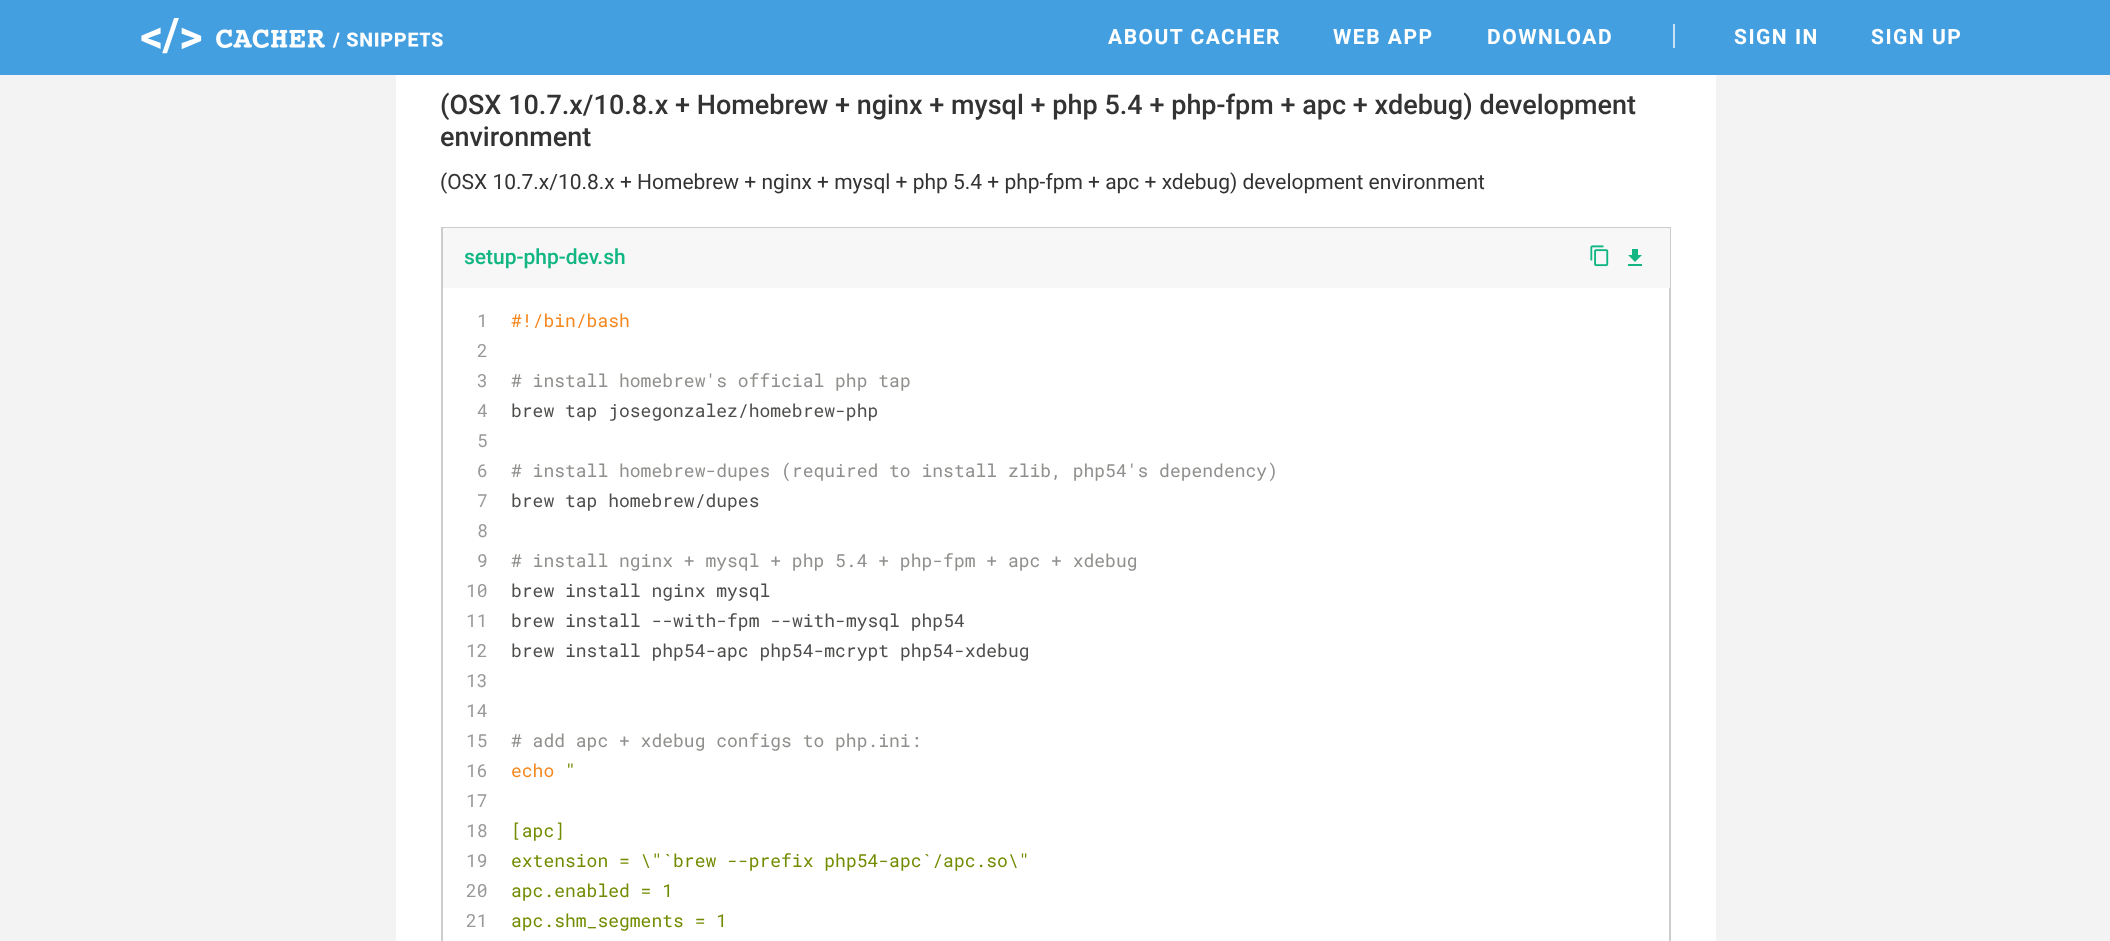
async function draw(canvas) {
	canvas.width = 2110;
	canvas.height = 941;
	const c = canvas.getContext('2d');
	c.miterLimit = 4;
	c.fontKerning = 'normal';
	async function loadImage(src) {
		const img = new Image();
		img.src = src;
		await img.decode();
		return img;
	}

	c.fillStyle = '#f3f3f3';
	c.fillRect(0, 0, 2110, 941);
	c.fillStyle = '#439fe0';
	c.fillRect(0, 0, 2110, 75);
	c.drawImage(await loadImage('img1.png'), 141, 18, 302, 36);
	c.letterSpacing = '1.5px';
	c.font = 'bold 21px Roboto';
	c.fillStyle = '#fff';
	for (const [text, x, y] of [
		['ABOUT CACHER', 1108, 44],
		['WEB APP', 1333, 44],
		['DOWNLOAD', 1487, 44],
	]) {
		c.fillText(text, x, y);
	}
	c.fillStyle = '#c7e2f6';
	c.fillRect(1673, 24, 2, 24);
	c.fillStyle = '#fff';
	c.fillText('SIGN IN', 1734, 44);
	c.fillText('SIGN UP', 1871, 44);
	c.fillRect(396, 75, 1320, 866);
	c.letterSpacing = '0px';
	c.font = '500 27px Roboto';
	c.fillStyle = '#333';
	c.fillText('(OSX 10.7.x/10.8.x + Homebrew + nginx + mysql + php 5.4 + php-fpm + apc + xdebug) development', 440, 114);
	c.fillText('environment', 440, 146);
	c.font = '21px Roboto';
	c.fillText('(OSX 10.7.x/10.8.x + Homebrew + nginx + mysql + php 5.4 + php-fpm + apc + xdebug) development environment', 440, 189);
	c.strokeStyle = '#ccc';
	c.lineWidth = 2;
	c.strokeRect(442, 228, 1228, 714);
	c.fillStyle = '#f7f7f7';
	c.fillRect(443, 228, 1227, 60);
	c.font = '500 21px Roboto';
	c.fillStyle = '#11b683';
	c.fillText('setup-php-dev.sh', 464, 264);
	c.drawImage(await loadImage('img2.png'), 1590, 245, 19, 22);
	c.drawImage(await loadImage('img3.png'), 1628, 249, 14, 17);
	c.font = '18px Roboto Mono';
	c.fillStyle = '#999';
	c.fillText('1', 477, 327);
	c.fillStyle = '#f5871f';
	c.fillText('#!/bin/bash', 511, 327);
	c.fillStyle = '#999';
	c.fillText('2', 477, 357);
	c.fillText('3', 477, 387);
	c.fillStyle = '#8e908c';
	c.fillText('# install homebrew\'s official php tap', 511, 387);
	c.fillStyle = '#999';
	c.fillText('4', 477, 417);
	c.fillStyle = '#4d4d4c';
	c.fillText('brew tap josegonzalez/homebrew-php', 511, 417);
	c.fillStyle = '#999';
	c.fillText('5', 477, 447);
	c.fillText('6', 477, 477);
	c.fillStyle = '#8e908c';
	c.fillText('# install homebrew-dupes (required to install zlib, php54\'s dependency)', 511, 477);
	c.fillStyle = '#999';
	c.fillText('7', 477, 507);
	c.fillStyle = '#4d4d4c';
	c.fillText('brew tap homebrew/dupes', 511, 507);
	c.fillStyle = '#999';
	c.fillText('8', 477, 537);
	c.fillText('9', 477, 567);
	c.fillStyle = '#8e908c';
	c.fillText('# install nginx + mysql + php 5.4 + php-fpm + apc + xdebug', 511, 567);
	c.fillStyle = '#999';
	c.fillText('10', 466, 597);
	c.fillStyle = '#4d4d4c';
	c.fillText('brew install nginx mysql', 511, 597);
	c.fillStyle = '#999';
	c.fillText('11', 466, 627);
	c.fillStyle = '#4d4d4c';
	c.fillText('brew install --with-fpm --with-mysql php54', 511, 627);
	c.fillStyle = '#999';
	c.fillText('12', 466, 657);
	c.fillStyle = '#4d4d4c';
	c.fillText('brew install php54-apc php54-mcrypt php54-xdebug', 511, 657);
	c.fillStyle = '#999';
	for (const [text, x, y] of [
		['13', 466, 687],
		['14', 466, 717],
		['15', 466, 747],
	]) {
		c.fillText(text, x, y);
	}
	c.fillStyle = '#8e908c';
	c.fillText('# add apc + xdebug configs to php.ini:', 511, 747);
	c.fillStyle = '#999';
	c.fillText('16', 466, 777);
	c.fillStyle = '#f5871f';
	c.fillText('echo', 511, 777);
	c.fillStyle = '#718c00';
	c.fillText('"', 565, 777);
	c.fillStyle = '#999';
	c.fillText('17', 466, 807);
	c.fillText('18', 466, 837);
	c.fillStyle = '#718c00';
	c.fillText('[apc]', 511, 837);
	c.fillStyle = '#999';
	c.fillText('19', 466, 867);
	c.fillStyle = '#718c00';
	c.fillText('extension = \\"`brew --prefix php54-apc`/apc.so\\"', 511, 867);
	c.fillStyle = '#999';
	c.fillText('20', 466, 897);
	c.fillStyle = '#718c00';
	c.fillText('apc.enabled = 1', 511, 897);
	c.fillStyle = '#999';
	c.fillText('21', 466, 927);
	c.fillStyle = '#718c00';
	c.fillText('apc.shm_segments = 1', 511, 927);
}

draw(document.querySelector('canvas'));
